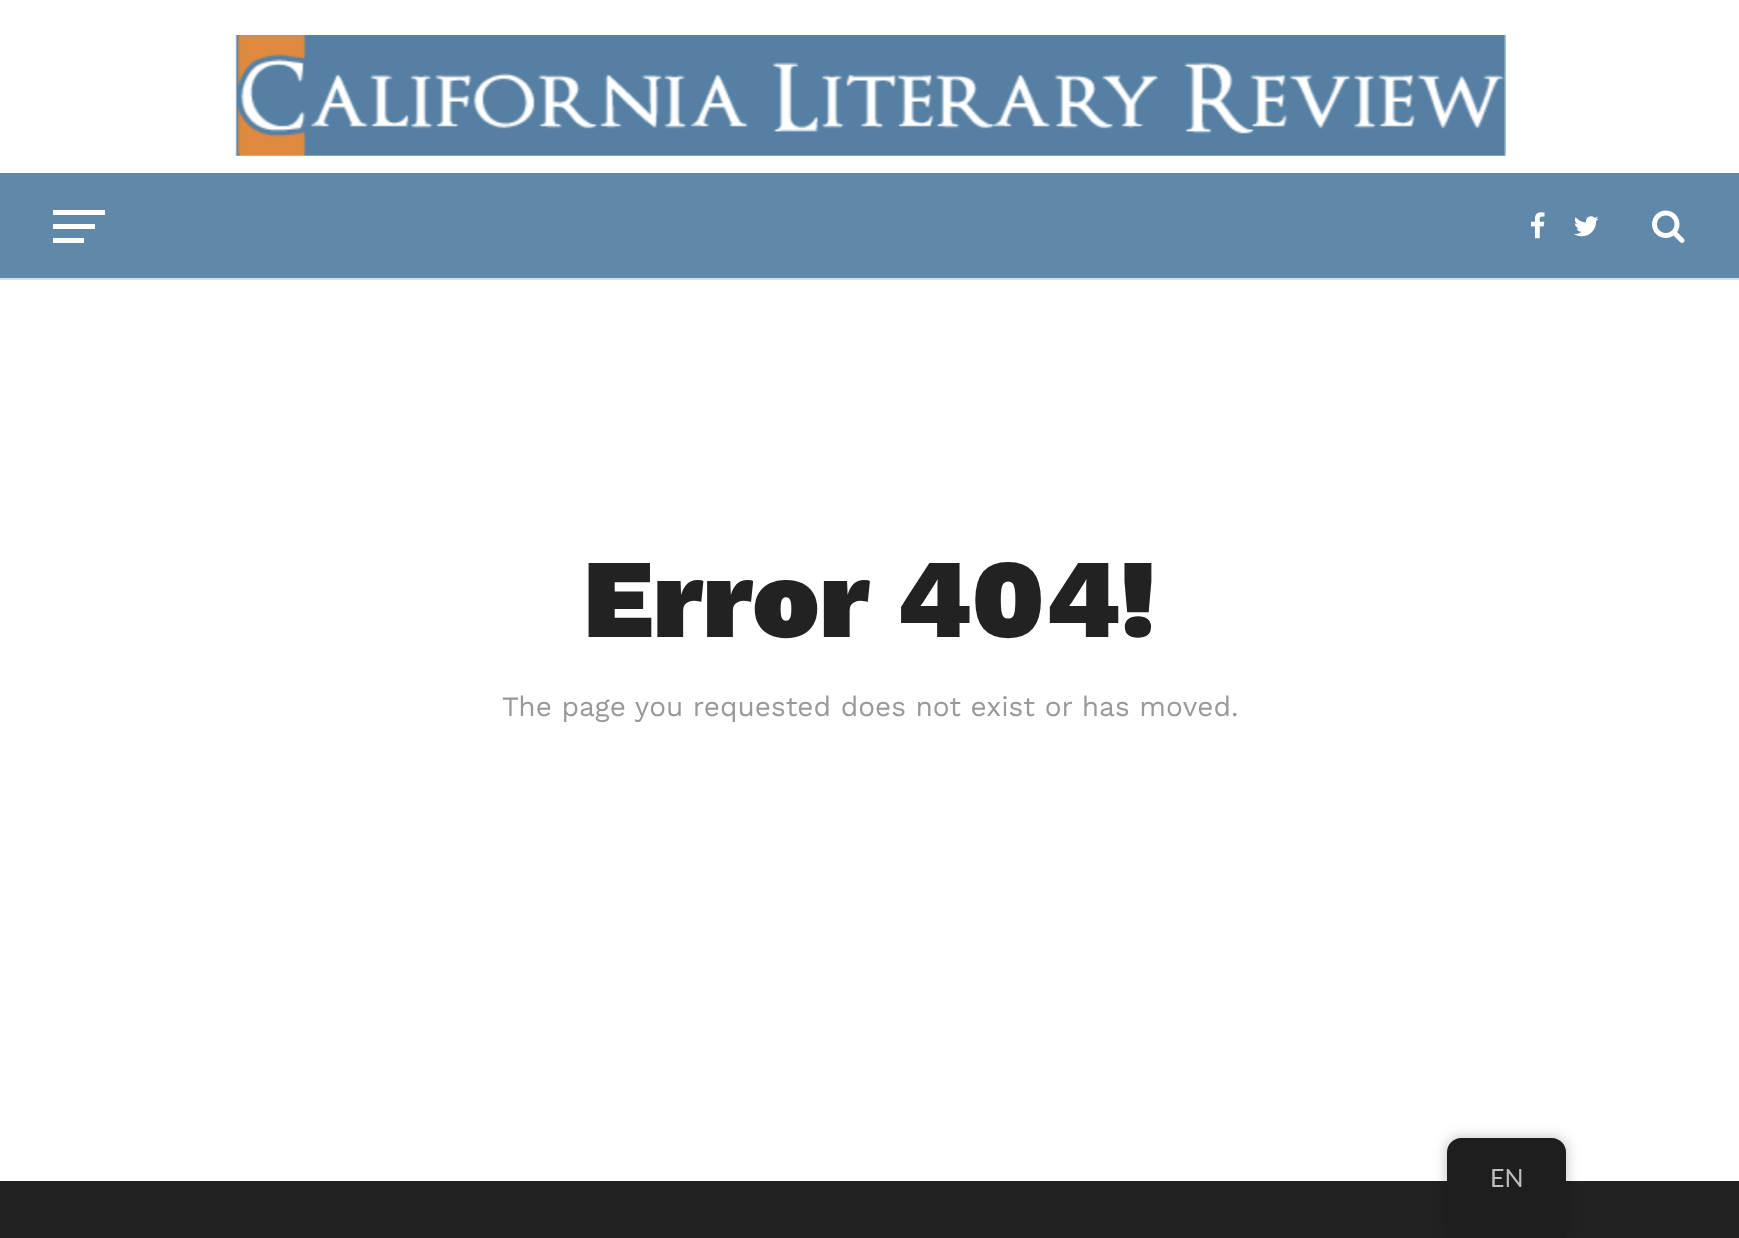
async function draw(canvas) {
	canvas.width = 1739;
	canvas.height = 1238;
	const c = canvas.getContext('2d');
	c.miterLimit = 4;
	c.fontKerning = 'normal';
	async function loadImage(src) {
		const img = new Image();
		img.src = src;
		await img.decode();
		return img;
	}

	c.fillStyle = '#fff';
	c.fillRect(0, 0, 1739, 1238);
	c.drawImage(await loadImage('img1.png'), 235, 35, 1271, 121);
	for (const [x, y, w, h, color] of [
		[0, 173, 1739, 105, '#6088ab'],
		[53, 210, 52, 5, '#fff'],
		[53, 224, 42, 5, '#fff'],
		[53, 238, 31, 5, '#fff'],
	]) {
		c.fillStyle = color;
		c.fillRect(x, y, w, h);
	}
	c.drawImage(await loadImage('img2.png'), 1531, 212, 14, 27);
	c.drawImage(await loadImage('img3.png'), 1574, 216, 25, 21);
	c.drawImage(await loadImage('img4.png'), 1652, 210, 33, 33);
	c.fillStyle = '#ddd';
	c.fillRect(0, 278, 1739, 2);
	c.font = '900 112px Work Sans';
	c.fillStyle = '#222';
	c.fillText('Error 404!', 583, 637);
	c.font = '28px Work Sans';
	c.fillStyle = '#999';
	c.fillText('The page you requested does not exist or has moved.', 502, 716);
	c.fillStyle = '#222';
	c.fillRect(0, 1181, 1739, 57);
	c.fillStyle = '#00000040';
	c.filter = 'blur(7px)';
	c.beginPath();
	c.roundRect(1447, 1138, 119, 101, 14);
	c.fill();
	c.filter = 'none';
	c.fillStyle = '#1e1e1e';
	c.beginPath();
	c.moveTo(1461, 1138);
	c.lineTo(1552, 1138);
	c.bezierCurveTo(1559.5, 1138, 1566, 1144.5, 1566, 1152);
	c.lineTo(1566, 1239);
	c.lineTo(1447, 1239);
	c.lineTo(1447, 1152);
	c.bezierCurveTo(1447, 1144.5, 1453.5, 1138, 1461, 1138);
	c.closePath();
	c.fill();
	c.font = '25px Lato';
	c.fillStyle = '#bdbdbd';
	c.fillText('EN', 1490, 1187);
}

draw(document.querySelector('canvas'));
